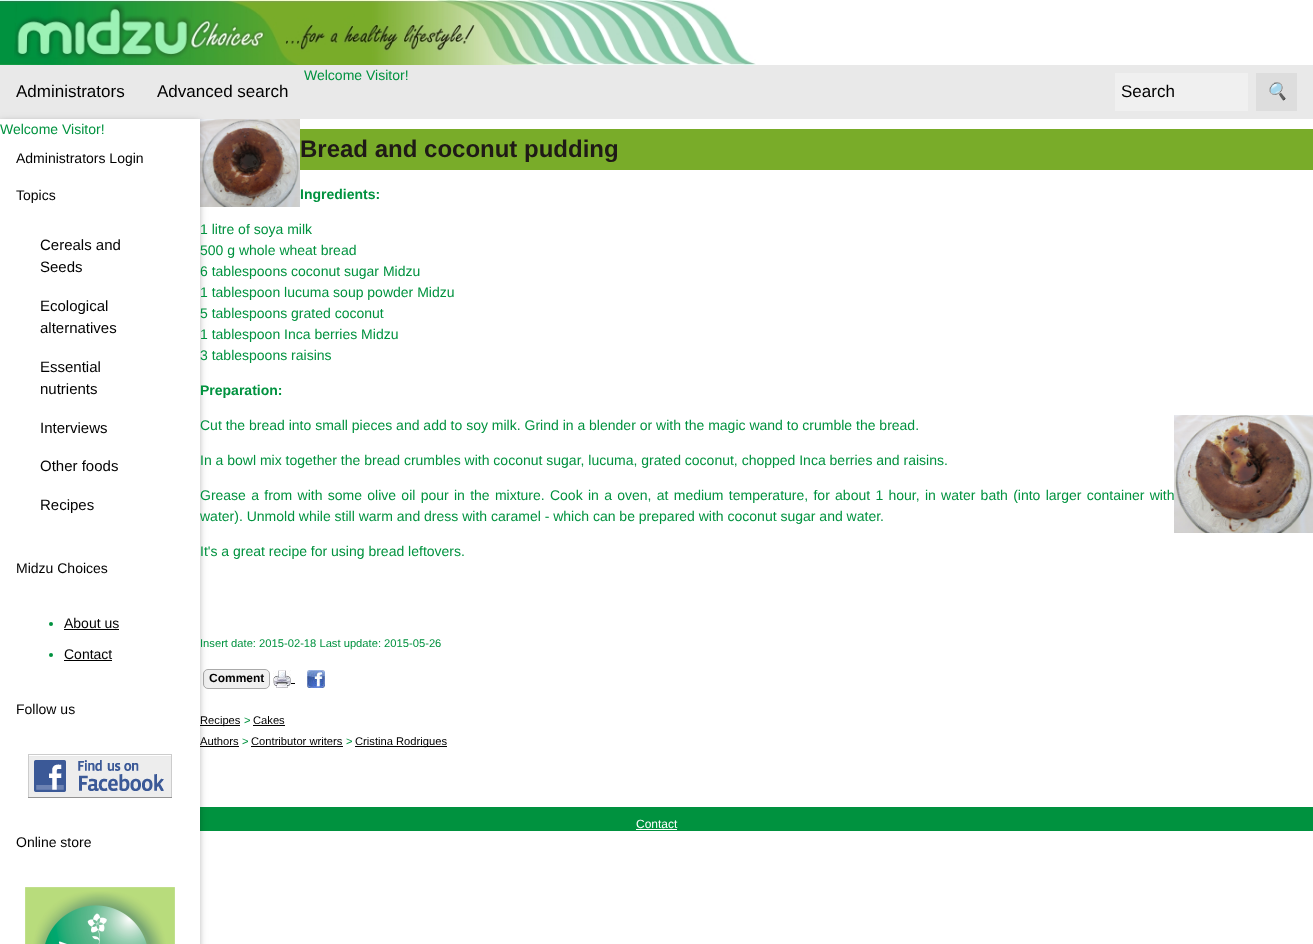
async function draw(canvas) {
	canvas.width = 1313;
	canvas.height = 944;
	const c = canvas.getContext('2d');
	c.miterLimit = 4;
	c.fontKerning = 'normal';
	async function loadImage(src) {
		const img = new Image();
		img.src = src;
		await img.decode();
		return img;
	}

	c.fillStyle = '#fff';
	c.fillRect(0, 0, 1313, 944);
	c.drawImage(await loadImage('img1.png'), 0, 0, 756, 65);
	c.fillStyle = '#e9e9e9';
	c.fillRect(0, 65, 1313, 54);
	c.font = '14px Liberation Sans';
	c.fillStyle = '#00923f';
	c.fillText('Welcome Visitor!', 304, 80);
	c.font = '17px Liberation Sans';
	c.fillStyle = '#000';
	c.fillText('Administrators', 16, 97);
	c.fillText('Advanced search', 157, 97);
	c.fillStyle = '#f0f0f0';
	c.fillRect(1115, 73, 133, 38);
	c.fillStyle = '#000';
	c.fillText('Search', 1121, 97);
	c.fillStyle = '#ddd';
	c.fillRect(1256, 73, 41, 38);
	c.font = 'italic 17px Noto Color Emoji';
	c.fillStyle = '#000';
	c.fillText('🔍', 1266, 97);
	c.drawImage(await loadImage('img4.png'), 200, 119, 100, 88);
	c.fillStyle = '#f0f0f0';
	c.beginPath();
	c.roundRect(203.5, 669.5, 66, 19, 4.5);
	c.fill();
	c.strokeStyle = '#aaa';
	c.stroke();
	for (const [x, y, w, h, color] of [
		[200, 725, 40, 1, '#000'],
		[200, 746, 39, 1, '#000'],
		[200, 807, 1113, 24, '#00923f'],
	]) {
		c.fillStyle = color;
		c.fillRect(x, y, w, h);
	}
	c.fillStyle = '#0000001f';
	c.filter = 'blur(5px)';
	c.beginPath();
	c.rect(0, 121, 200, 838);
	c.fill();
	c.filter = 'none';
	c.fillStyle = '#00000029';
	c.filter = 'blur(2.5px)';
	c.beginPath();
	c.rect(0, 121, 200, 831);
	c.fill();
	c.filter = 'none';
	c.fillStyle = '#fff';
	c.fillRect(0, 119, 200, 825);
	c.font = '14px Liberation Sans';
	c.fillStyle = '#00923f';
	c.fillText('Welcome Visitor!', 0, 134);
	c.fillStyle = '#000';
	c.fillText('Administrators Login', 16, 163);
	c.fillText('Topics', 16, 200);
	c.font = '15px Liberation Sans';
	for (const [text, x, y] of [
		['Cereals and', 40, 250],
		['Seeds', 40, 272],
		['Ecological', 40, 311],
		['alternatives', 40, 333],
		['Essential', 40, 372],
		['nutrients', 40, 394],
		['Interviews', 40, 433],
		['Other foods', 40, 471],
		['Recipes', 40, 510],
	]) {
		c.fillText(text, x, y);
	}
	c.font = '14px Liberation Sans';
	c.fillText('Midzu Choices', 16, 573);
	c.fillStyle = '#00923f';
	c.beginPath();
	c.arc(51, 624, 2, 0, 2 * Math.PI);
	c.fill();
	c.fillStyle = '#000';
	c.fillText('About us', 64, 628);
	c.fillRect(64, 629, 55, 1);
	c.fillStyle = '#00923f';
	c.beginPath();
	c.arc(51, 655, 2, 0, 2 * Math.PI);
	c.fill();
	c.fillStyle = '#000';
	c.fillText('Contact', 64, 659);
	c.fillRect(64, 660, 48, 1);
	c.fillText('Follow us', 16, 714);
	c.drawImage(await loadImage('img2.png'), 28, 754, 144, 44);
	c.fillText('Online store', 16, 847);
	c.drawImage(await loadImage('img3.png'), 25, 887, 150, 57);
	c.fillStyle = '#79ac29';
	c.fillRect(300, 129, 1013, 41);
	c.font = 'bold 24px Liberation Sans';
	c.fillStyle = '#1f1a17';
	c.fillText('Bread and coconut pudding', 300, 157);
	c.font = 'bold 14px Liberation Sans';
	c.fillStyle = '#00923f';
	c.fillText('Ingredients:', 300, 199);
	c.font = '14px Liberation Sans';
	for (const [text, x, y] of [
		['1 litre of soya milk', 200, 234],
		['500 g whole wheat bread', 200, 255],
		['6 tablespoons coconut sugar Midzu', 200, 276],
		['1 tablespoon lucuma soup powder Midzu', 200, 297],
		['5 tablespoons grated coconut', 200, 318],
		['1 tablespoon Inca berries Midzu', 200, 339],
		['3 tablespoons raisins', 200, 360],
	]) {
		c.fillText(text, x, y);
	}
	c.font = 'bold 14px Liberation Sans';
	c.fillText('Preparation:', 200, 395);
	c.font = '14px Liberation Sans';
	c.fillText('Cut the bread into small pieces and add to soy milk. Grind in a blender or with the magic wand to crumble the bread.', 200, 430);
	c.drawImage(await loadImage('img5.png'), 1174, 415, 139, 118);
	c.fillText('In a bowl mix together the bread crumbles with coconut sugar, lucuma, grated coconut, chopped Inca berries and raisins.', 200, 465);
	c.wordSpacing = '1.4px';
	c.fillText('Grease a from with some olive oil pour in the mixture. Cook in a oven, at medium temperature, for about 1 hour, in water bath (into larger container with', 200, 500);
	c.wordSpacing = '0px';
	c.fillText('water). Unmold while still warm and dress with caramel - which can be prepared with coconut sugar and water.', 200, 521);
	c.fillText('It\'s a great recipe for using bread leftovers.', 200, 556);
	c.font = '11.2px Liberation Sans';
	c.fillText('Insert date: 2015-02-18 Last update: 2015-05-26', 200, 647);
	c.font = 'bold 12px Liberation Sans';
	c.fillStyle = '#000';
	c.fillText('Comment', 209, 682);
	c.fillRect(291, 683, 4, 1);
	c.drawImage(await loadImage('img6.png'), 273, 670, 18, 18);
	c.drawImage(await loadImage('img7.png'), 307, 670, 18, 18);
	c.font = '11.2px Liberation Sans';
	c.fillText('Recipes', 200, 724);
	c.fillStyle = '#00923f';
	c.fillText('>', 244, 724);
	c.fillStyle = '#000';
	c.fillText('Cakes', 253, 724);
	c.fillRect(253, 725, 32, 1);
	c.fillText('Authors', 200, 745);
	c.fillStyle = '#00923f';
	c.fillText('>', 242, 745);
	c.fillStyle = '#000';
	c.fillText('Contributor writers', 251, 745);
	c.fillRect(251, 746, 92, 1);
	c.fillStyle = '#00923f';
	c.fillText('>', 346, 745);
	c.fillStyle = '#000';
	c.fillRect(355, 746, 92, 1);
	c.fillText('Cristina Rodrigues', 355, 745);
	c.font = '12px Liberation Sans';
	c.fillStyle = '#fff';
	c.fillText('Contact', 636, 828);
	c.fillRect(636, 829, 41, 1);
}

draw(document.querySelector('canvas'));
